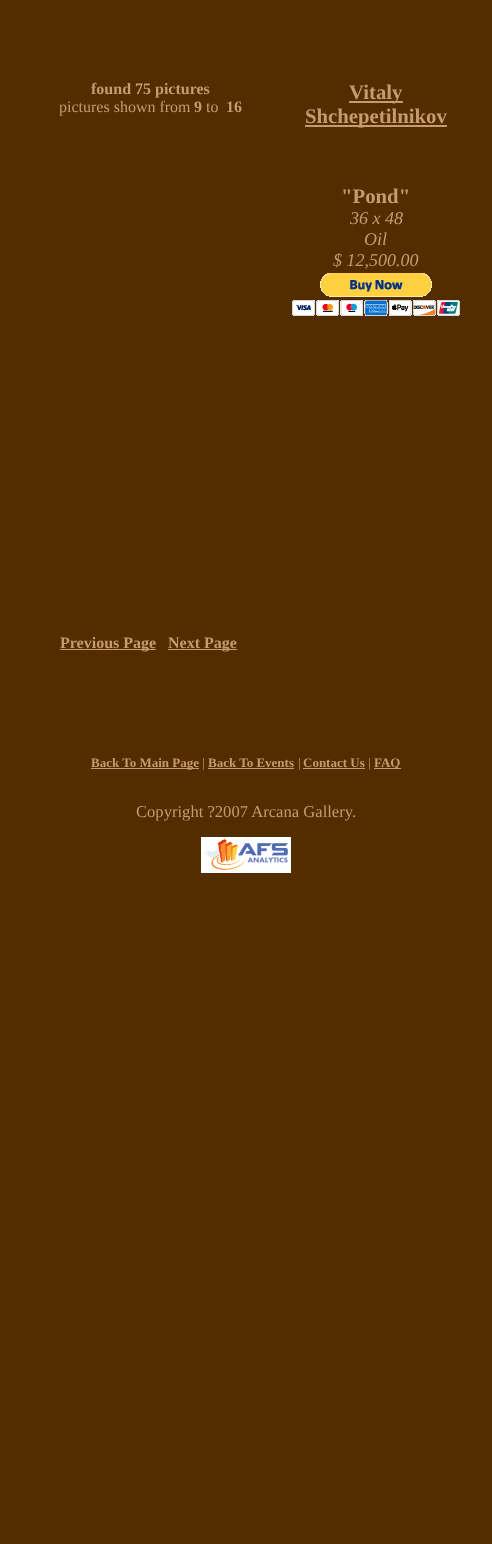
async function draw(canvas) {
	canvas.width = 492;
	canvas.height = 1544;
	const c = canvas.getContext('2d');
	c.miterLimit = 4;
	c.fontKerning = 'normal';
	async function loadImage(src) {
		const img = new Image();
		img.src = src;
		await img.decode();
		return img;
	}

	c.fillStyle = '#522d00';
	c.fillRect(0, 0, 492, 1544);
	c.font = 'bold 16px Liberation Serif';
	c.fillStyle = '#c69c6d';
	c.fillText('found 75 pictures', 91, 94);
	c.font = '16px Liberation Serif';
	c.fillText('pictures shown from', 59, 112);
	c.font = 'bold 16px Liberation Serif';
	c.fillText('9', 194, 112);
	c.font = '16px Liberation Serif';
	c.fillText('to', 206, 112);
	c.font = 'bold 16px Liberation Serif';
	c.fillText('16', 226, 112);
	c.fillRect(60, 649, 96, 1);
	c.fillText('Previous Page', 60, 648);
	c.fillRect(168, 649, 69, 1);
	c.fillText('Next Page', 168, 648);
	c.fillRect(349, 101, 54, 2);
	c.font = 'bold 20.75px Liberation Serif';
	c.fillText('Vitaly', 349, 99);
	c.fillRect(305, 125, 142, 2);
	c.fillText('Shchepetilnikov', 305, 123);
	c.fillText('"Pond"', 341, 203);
	c.font = 'italic 18px Liberation Serif';
	for (const [text, x, y] of [
		['36 x 48', 350, 224],
		['Oil', 364, 245],
		['$ 12,500.00', 333, 266],
	]) {
		c.fillText(text, x, y);
	}
	c.drawImage(await loadImage('img1.png'), 292, 273, 168, 43);
	c.fillRect(91, 768, 108, 1);
	c.font = 'bold 13px Liberation Serif';
	c.fillText('Back To Main Page', 91, 767);
	c.font = '13px Liberation Serif';
	c.fillText('|', 202, 767);
	c.font = 'bold 13px Liberation Serif';
	c.fillText('Back To Events', 208, 767);
	c.fillRect(208, 768, 86, 1);
	c.font = '13px Liberation Serif';
	c.fillText('|', 298, 767);
	c.font = 'bold 13px Liberation Serif';
	c.fillText('Contact Us', 303, 767);
	c.fillRect(303, 768, 62, 1);
	c.font = '13px Liberation Serif';
	c.fillText('|', 368, 767);
	c.fillRect(374, 768, 27, 1);
	c.font = 'bold 13px Liberation Serif';
	c.fillText('FAQ', 374, 767);
	c.font = '16.6px Liberation Serif';
	c.fillText('Copyright ?2007 Arcana Gallery.', 136, 817);
	c.drawImage(await loadImage('img2.png'), 201, 837, 90, 36);
}

draw(document.querySelector('canvas'));
